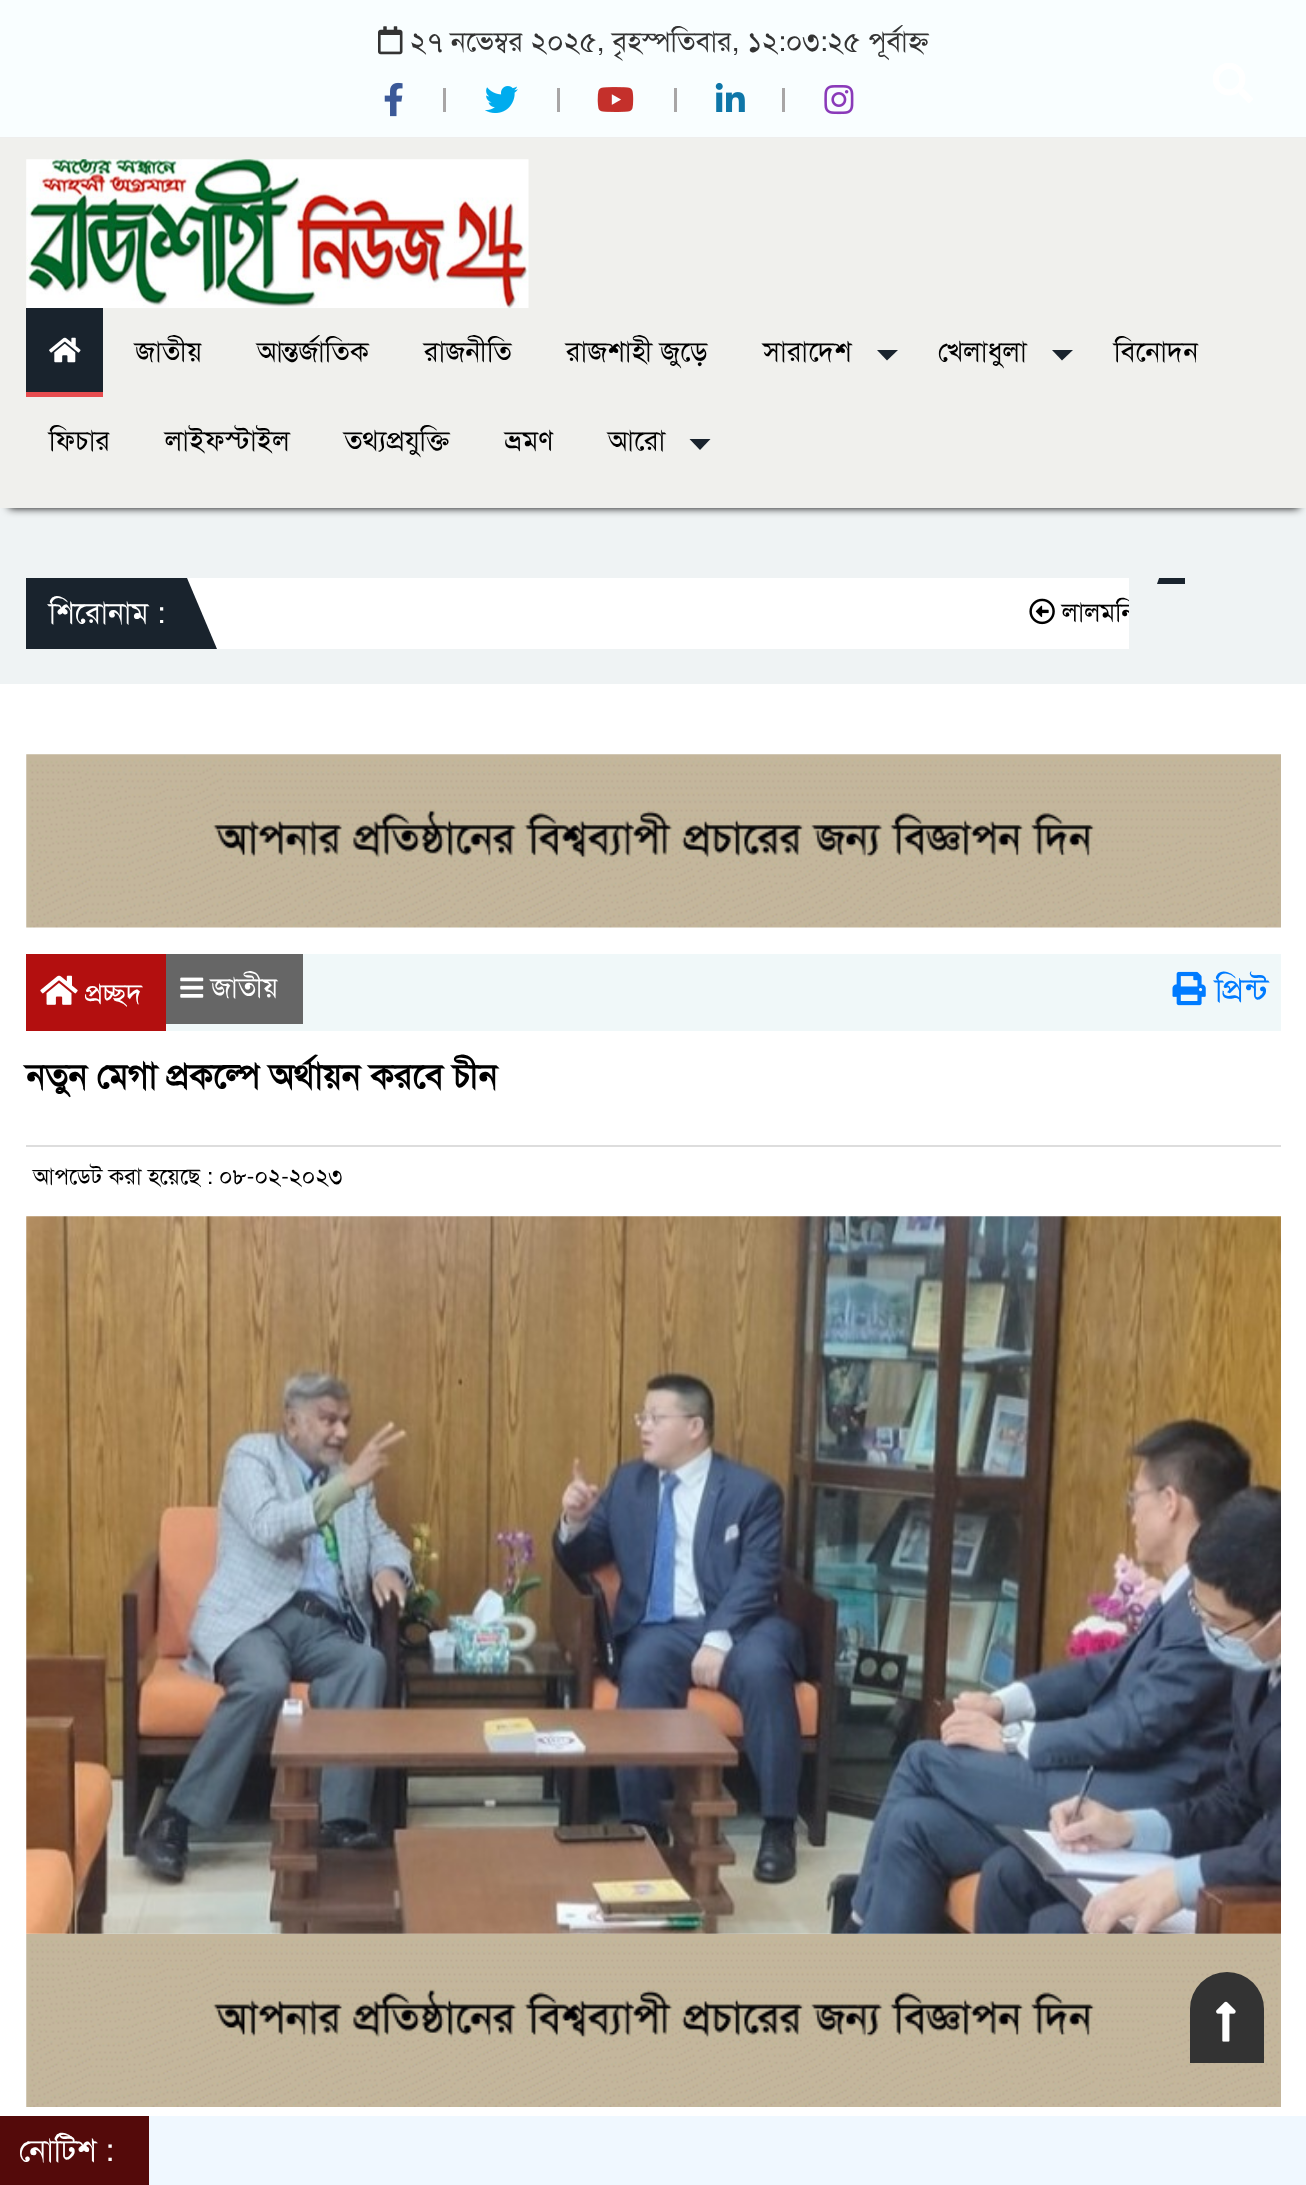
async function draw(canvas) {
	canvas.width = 1306;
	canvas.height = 2185;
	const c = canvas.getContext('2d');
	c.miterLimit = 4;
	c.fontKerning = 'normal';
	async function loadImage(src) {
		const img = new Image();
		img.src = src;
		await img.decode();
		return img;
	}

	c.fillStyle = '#eff3f4';
	c.fillRect(0, 0, 1306, 2185);
	c.fillStyle = '#f9feff';
	c.fillRect(0, 0, 1306, 137);
	c.fillStyle = '#eee';
	c.fillRect(0, 137, 1306, 1);
	c.drawImage(await loadImage('img1.png'), 378, 26, 25, 29);
	c.font = '28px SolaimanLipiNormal';
	c.fillStyle = '#333';
	c.fillText('২৭ নভেম্বর ২০২৫, বৃহস্পতিবার, ১২:০৩:২৫ পূর্বাহ্ন', 410, 51);
	c.drawImage(await loadImage('img2.png'), 384, 82, 19, 35);
	c.fillStyle = '#a8a6a6';
	c.fillRect(443, 88, 3, 24);
	c.drawImage(await loadImage('img3.png'), 485, 86, 33, 27);
	c.fillRect(557, 88, 3, 24);
	c.drawImage(await loadImage('img4.png'), 597, 87, 37, 25);
	c.fillRect(674, 88, 3, 24);
	c.drawImage(await loadImage('img5.png'), 715, 82, 30, 30);
	c.fillRect(782, 88, 3, 24);
	c.drawImage(await loadImage('img6.png'), 824, 85, 30, 30);
	c.drawImage(await loadImage('img7.png'), 1213, 63, 40, 40);
	c.fillStyle = '#000';
	c.filter = 'blur(4.5px)';
	c.beginPath();
	c.rect(9, 156, 1290, 352);
	c.fill();
	c.filter = 'none';
	c.fillStyle = '#f0f0ed';
	c.fillRect(0, 138, 1306, 370);
	c.drawImage(await loadImage('img8.png'), 26, 159, 503, 149);
	c.fillStyle = '#19232d';
	c.fillRect(26, 308, 77, 84);
	c.drawImage(await loadImage('img9.png'), 49, 337, 32, 26);
	c.fillStyle = '#e74c4f';
	c.fillRect(26, 392, 77, 5);
	c.fillStyle = '#000';
	for (const [text, x, y] of [
		['জাতীয়', 135, 361],
		['আন্তর্জাতিক', 257, 361],
		['রাজনীতি', 424, 361],
		['রাজশাহী জুড়ে', 566, 361],
		['সারাদেশ', 763, 361],
	]) {
		c.fillText(text, x, y);
	}
	c.fillStyle = '#19232d';
	c.beginPath();
	c.moveTo(877, 350);
	c.lineTo(898, 350);
	c.lineTo(887, 360.5);
	c.closePath();
	c.fill();
	c.fillStyle = '#000';
	c.fillText('খেলাধুলা', 938, 361);
	c.fillStyle = '#19232d';
	c.beginPath();
	c.moveTo(1052, 350);
	c.lineTo(1073, 350);
	c.lineTo(1062, 360.5);
	c.closePath();
	c.fill();
	c.fillStyle = '#000';
	for (const [text, x, y] of [
		['বিনোদন', 1114, 361],
		['ফিচার', 49, 450],
		['লাইফস্টাইল', 165, 450],
		['তথ্যপ্রযুক্তি', 344, 450],
		['ভ্রমণ', 505, 450],
		['আরো', 608, 450],
	]) {
		c.fillText(text, x, y);
	}
	c.fillStyle = '#19232d';
	c.beginPath();
	c.moveTo(689.5, 439);
	c.lineTo(710.5, 439);
	c.lineTo(700, 450);
	c.closePath();
	c.fill();
	c.save();
	c.beginPath();
	c.rect(0, 578, 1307, 71);
	c.clip();
	c.beginPath();
	c.moveTo(1185, 584);
	c.lineTo(1157, 584);
	c.lineTo(1185, 504);
	c.closePath();
	c.fill();
	c.restore();
	c.fillRect(26, 578, 161, 71);
	c.font = '30px SolaimanLipiNormal';
	c.fillStyle = '#fff';
	c.fillText('শিরোনাম :', 49, 623);
	c.fillRect(187, 578, 942, 71);
	c.fillStyle = '#19232d';
	c.beginPath();
	c.moveTo(217, 649);
	c.lineTo(187, 649);
	c.lineTo(187, 578);
	c.closePath();
	c.fill();
	c.drawImage(await loadImage('img10.png'), 1029, 598, 26, 27);
	c.save();
	c.beginPath();
	c.rect(187, 578, 942, 70);
	c.clip();
	c.font = '26px SolaimanLipiNormal';
	c.fillStyle = '#000';
	c.fillText('লালমনি', 1062, 621);
	c.restore();
	c.fillStyle = '#fff';
	c.fillRect(0, 684, 1306, 1432);
	c.drawImage(await loadImage('img11.png'), 26, 754, 1255, 174);
	c.fillStyle = '#f0f8f9';
	c.fillRect(166, 954, 1115, 77);
	c.fillStyle = '#b30f0f';
	c.fillRect(26, 954, 140, 77);
	c.drawImage(await loadImage('img12.png'), 40, 975, 38, 30);
	c.font = '28px SolaimanLipiNormal';
	c.fillStyle = '#fff';
	c.fillText('প্রচ্ছদ', 85, 1003);
	c.fillStyle = '#666';
	c.fillRect(166, 954, 137, 70);
	c.drawImage(await loadImage('img13.png'), 180, 977, 24, 21);
	c.fillStyle = '#fff';
	c.fillText('জাতীয়', 211, 997);
	c.drawImage(await loadImage('img14.png'), 1172, 971, 34, 35);
	c.font = '33px SolaimanLipiNormal';
	c.fillStyle = '#007bff';
	c.fillText('প্রিন্ট', 1215, 1001);
	c.font = 'bold 35px SolaimanLipiNormal';
	c.fillStyle = '#000';
	c.fillText('নতুন মেগা প্রকল্পে অর্থায়ন করবে চীন', 26, 1088);
	c.fillStyle = '#ddd';
	c.fillRect(26, 1145, 1255, 2);
	c.font = '22.75px SolaimanLipiNormal';
	c.fillStyle = '#000';
	c.fillText('আপডেট করা হয়েছে : ০৮-০২-২০২৩', 33, 1184);
	c.drawImage(await loadImage('img16.png'), 26, 1933, 1255, 174);
	c.drawImage(await loadImage('img15.png'), 26, 1216, 1255, 718);
	c.fillStyle = '#333';
	c.beginPath();
	c.roundRect(1190, 1972, 74, 91, [37, 37, 0, 0]);
	c.fill();
	c.drawImage(await loadImage('img17.png'), 1216, 2001, 20, 41);
	c.fillStyle = '#f0f8ff';
	c.fillRect(149, 2116, 1157, 69);
	c.fillStyle = '#540a0a';
	c.fillRect(0, 2116, 149, 69);
	c.font = '31.5px SolaimanLipiNormal';
	c.fillStyle = '#fff';
	c.fillText('নোটিশ :', 19, 2161);
}

draw(document.querySelector('canvas'));
